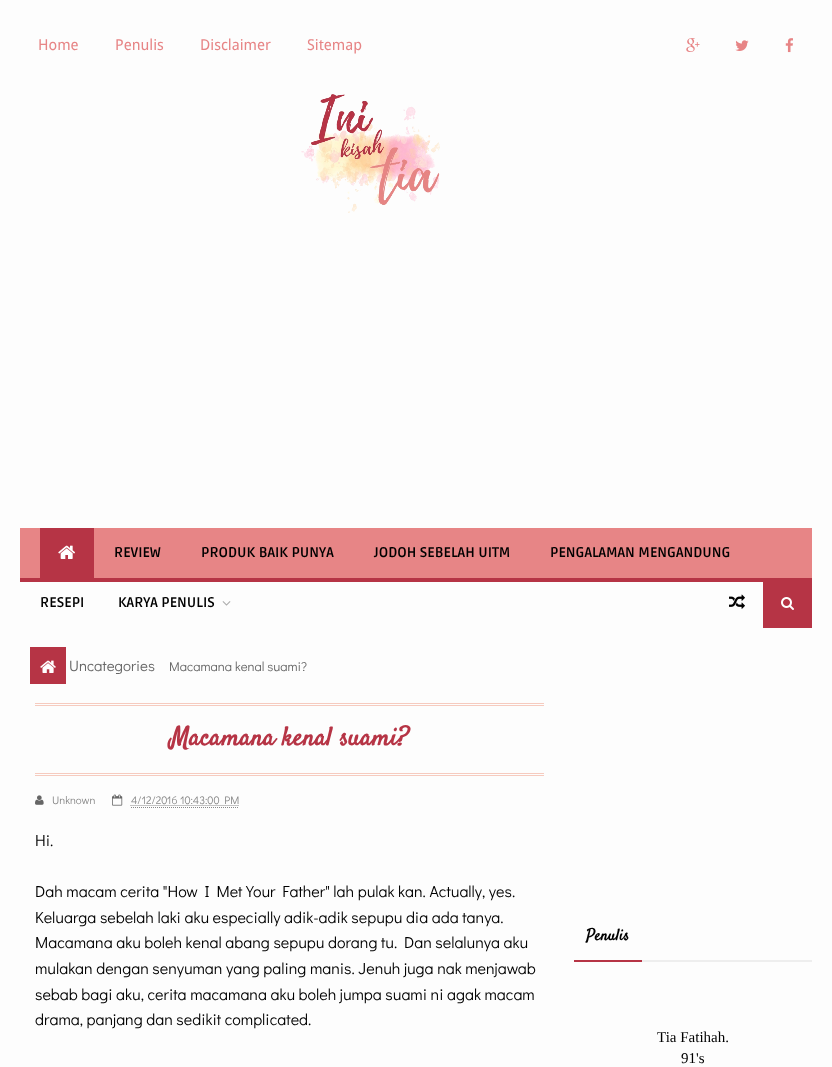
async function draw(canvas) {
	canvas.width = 832;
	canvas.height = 1067;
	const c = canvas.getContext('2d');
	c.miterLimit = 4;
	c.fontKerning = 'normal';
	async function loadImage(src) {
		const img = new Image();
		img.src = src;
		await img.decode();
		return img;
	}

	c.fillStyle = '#fdfdfd';
	c.fillRect(0, 0, 832, 1067);
	c.font = '15px Droid Sans';
	c.fillStyle = '#e78586';
	for (const [text, x, y] of [
		['Home', 38, 50],
		['Penulis', 115, 50],
		['Disclaimer', 200, 50],
		['Sitemap', 307, 50],
	]) {
		c.fillText(text, x, y);
	}
	c.drawImage(await loadImage('img1.png'), 686, 38, 14, 14);
	c.drawImage(await loadImage('img2.png'), 735, 40, 14, 11);
	c.drawImage(await loadImage('img3.png'), 785, 38, 8, 15);
	c.drawImage(await loadImage('img4.png'), 301, 94, 139, 119);
	for (const [x, y, w, h, color] of [
		[20, 528, 792, 50, '#e78586'],
		[20, 578, 743, 4, '#b63445'],
		[40, 528, 54, 50, '#b63445'],
	]) {
		c.fillStyle = color;
		c.fillRect(x, y, w, h);
	}
	c.drawImage(await loadImage('img5.png'), 58, 545, 17, 14);
	c.font = 'bold 14px Ruda';
	c.fillStyle = '#000';
	for (const [text, x, y] of [
		['REVIEW', 114, 557],
		['PRODUK BAIK PUNYA', 201, 557],
		['JODOH SEBELAH UITM', 374, 557],
		['PENGALAMAN MENGANDUNG', 550, 557],
		['RESEPI', 40, 607],
		['KARYA PENULIS', 118, 607],
	]) {
		c.fillText(text, x, y);
	}
	c.drawImage(await loadImage('img6.png'), 222, 601, 9, 5);
	c.drawImage(await loadImage('img7.png'), 729, 594, 16, 15);
	c.fillStyle = '#b63445';
	c.fillRect(763, 578, 49, 50);
	c.drawImage(await loadImage('img8.png'), 781, 597, 13, 13);
	c.fillRect(30, 647, 36, 37);
	c.drawImage(await loadImage('img9.png'), 40, 660, 16, 13);
	c.font = '15px Didact Gothic';
	c.fillStyle = '#666';
	c.fillText('Uncategories', 69, 671);
	c.font = '13px Didact Gothic';
	c.fillText('Macamana kenal suami?', 169, 671);
	for (const [x, y, w, h, color] of [
		[35, 703, 509, 1, '#f6cbbf'],
		[35, 705, 509, 1, '#f6cbbf'],
		[35, 773, 509, 1, '#f6cbbf'],
		[35, 775, 509, 1, '#f6cbbf'],
	]) {
		c.fillStyle = color;
		c.fillRect(x, y, w, h);
	}
	c.font = 'bold 26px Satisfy';
	c.fillStyle = '#b63445';
	c.fillText('Macamana kenal suami?', 170, 745);
	c.drawImage(await loadImage('img10.png'), 35, 795, 9, 10);
	c.font = '11px Didact Gothic';
	c.fillStyle = '#888';
	c.fillText('Unknown', 52, 804);
	c.drawImage(await loadImage('img11.png'), 112, 794, 11, 12);
	c.fillText('4/12/2016 10:43:00 PM', 131, 804);
	c.beginPath();
	c.moveTo(131, 807.5);
	c.lineTo(239, 807.5);
	c.strokeStyle = '#888';
	c.setLineDash([1, 1]);
	c.stroke();
	c.beginPath();
	c.moveTo(130.5, 805.5);
	c.lineTo(239, 805.5);
	c.stroke();
	c.font = '16px Didact Gothic';
	c.fillStyle = '#000';
	for (const [text, x, y] of [
		['Hi.', 35, 846],
		['Dah macam cerita "How I Met Your Father" lah pulak kan. Actually, yes.', 35, 897],
		['Keluarga sebelah laki aku especially adik-adik sepupu dia ada tanya.', 35, 923],
		['Macamana aku boleh kenal abang sepupu dorang tu. Dan selalunya aku', 35, 948],
		['mulakan dengan senyuman yang paling manis. Jenuh juga nak menjawab', 35, 974],
		['sebab bagi aku, cerita macamana aku boleh jumpa suami ni agak macam', 35, 1000],
		['drama, panjang dan sedikit complicated.', 35, 1025],
	]) {
		c.fillText(text, x, y);
	}
	c.fillStyle = '#eee';
	c.fillRect(642, 960, 170, 2);
	c.fillStyle = '#b63445';
	c.fillRect(574, 960, 68, 2);
	c.font = 'bold 16px Satisfy';
	c.fillStyle = '#000';
	c.fillText('Penulis', 586, 940);
	c.font = '15px Liberation Serif';
	c.fillText('Tia Fatihah.', 657, 1042);
	c.fillText('91\'s', 681, 1063);
}

draw(document.querySelector('canvas'));
